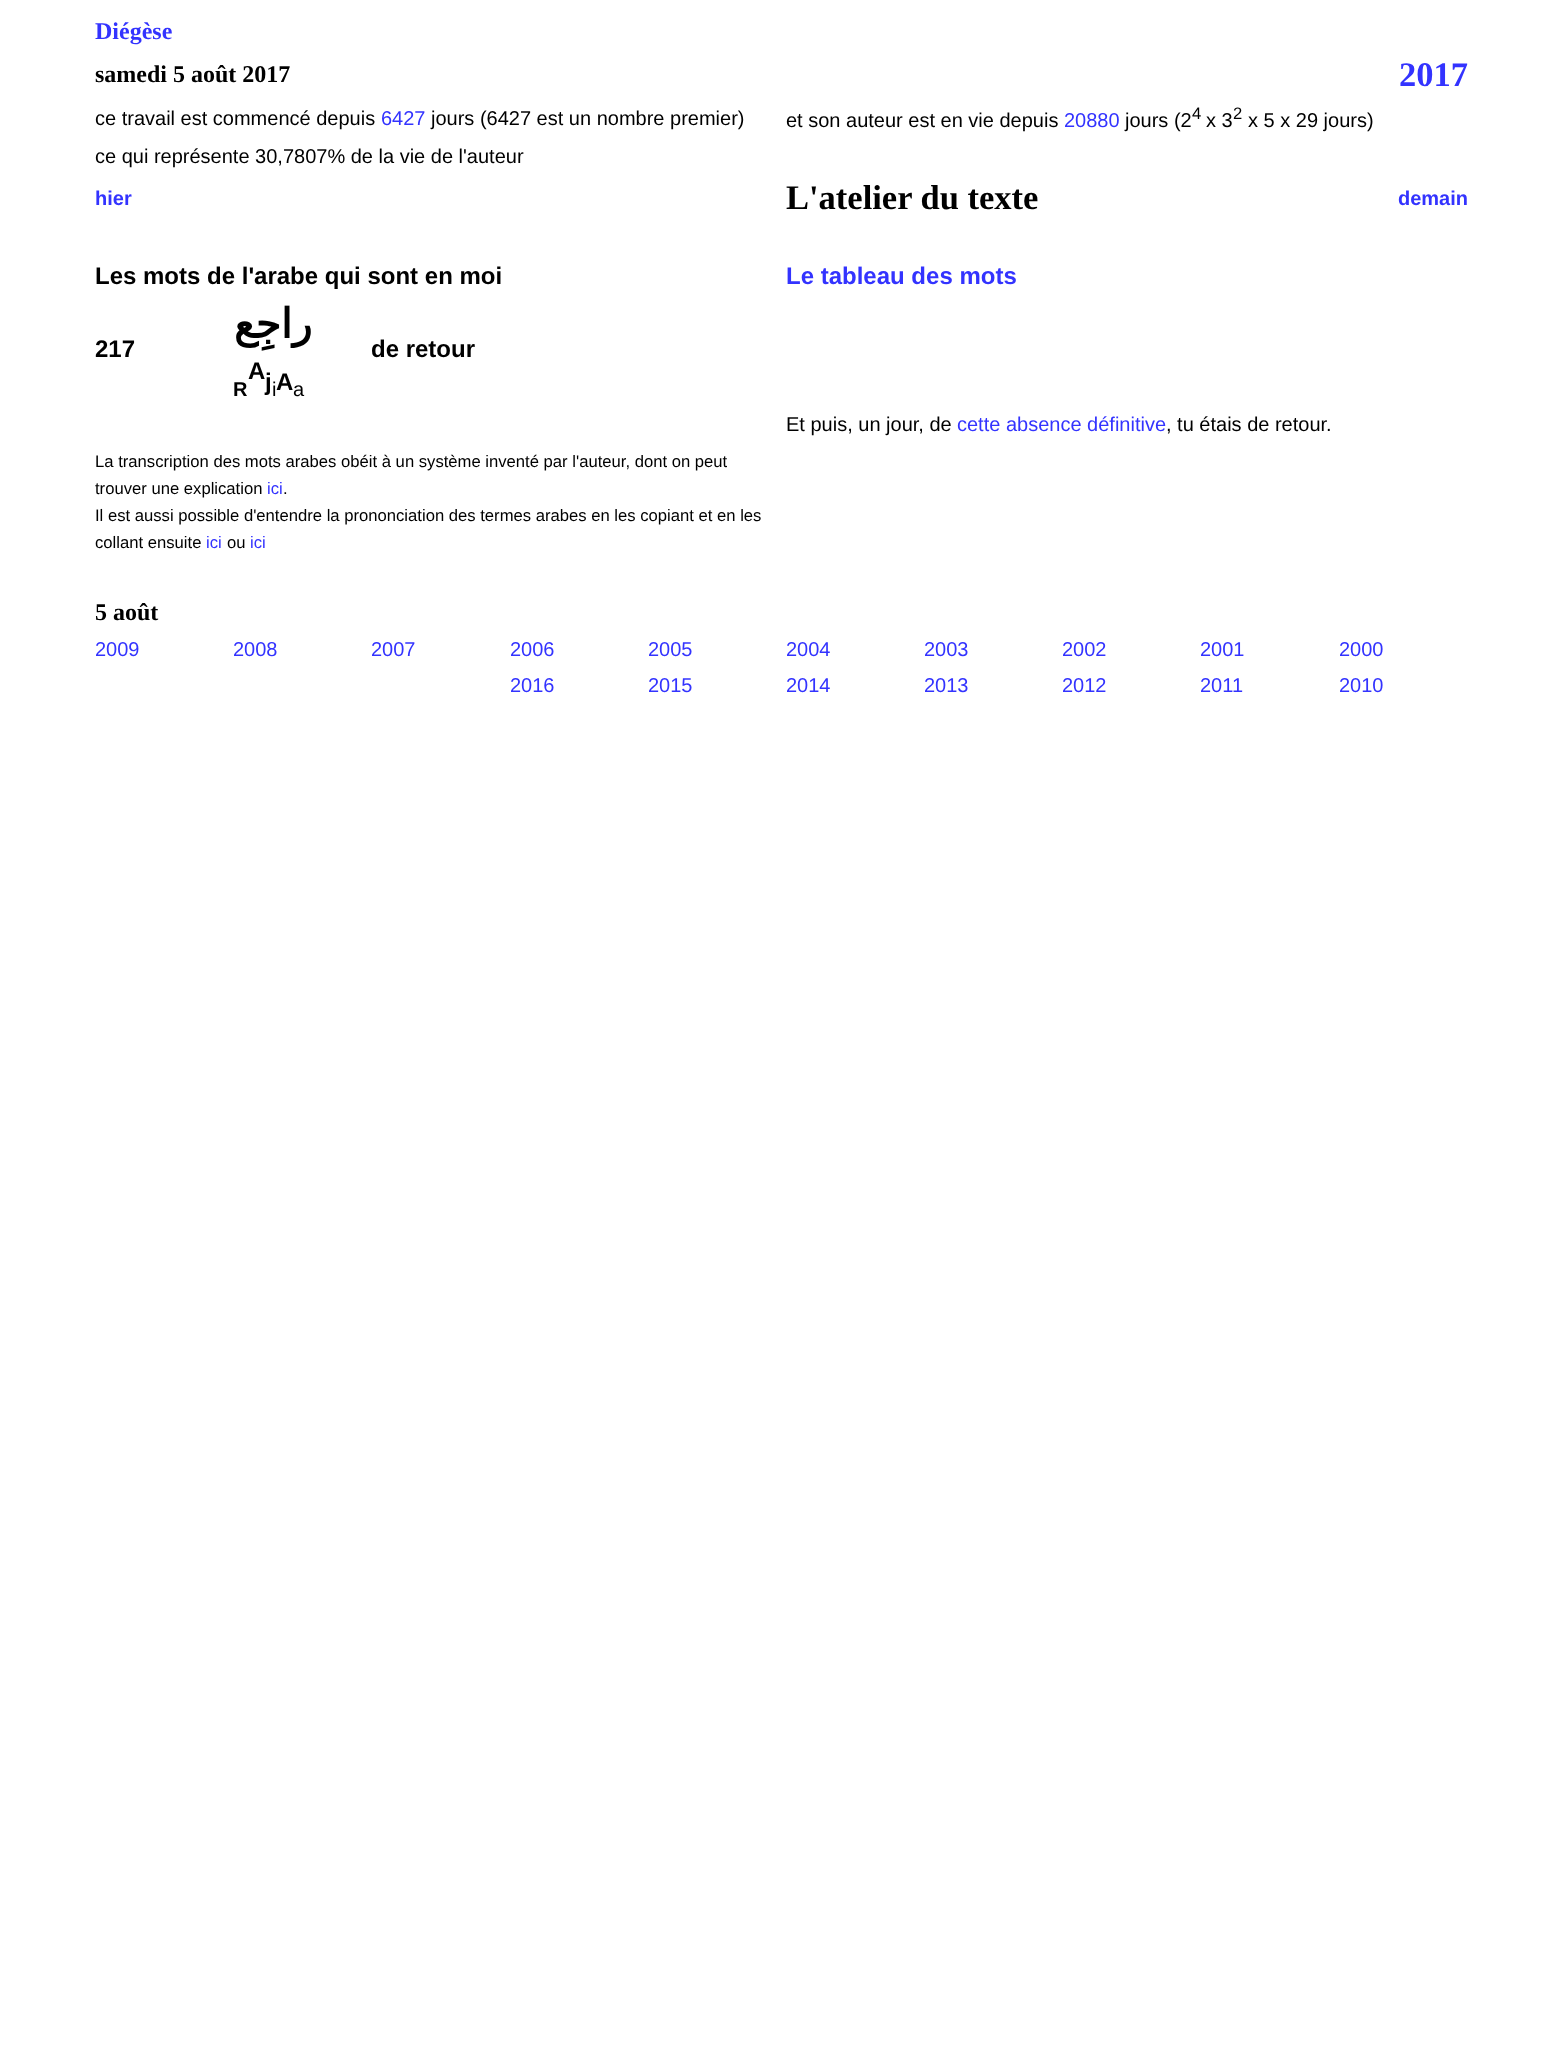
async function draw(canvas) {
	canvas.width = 1563;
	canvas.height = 2049;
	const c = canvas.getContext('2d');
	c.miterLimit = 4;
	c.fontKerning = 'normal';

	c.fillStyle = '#fff';
	c.fillRect(0, 0, 1563, 2049);
	c.font = 'bold 24px Liberation Serif';
	c.fillStyle = '#33f';
	c.fillText('Diégèse', 95, 39);
	c.fillStyle = '#000';
	c.fillText('samedi 5 août 2017', 95, 82);
	c.font = 'bold 34.5px Liberation Serif';
	c.fillStyle = '#33f';
	c.fillText('2017', 1399, 86);
	c.font = '20px Liberation Sans';
	c.fillStyle = '#000';
	c.fillText('ce travail est commencé depuis', 95, 125);
	c.fillStyle = '#33f';
	c.fillText('6427', 381, 125);
	c.fillStyle = '#000';
	c.fillText('jours (6427 est un nombre premier)', 431, 125);
	c.fillText('et son auteur est en vie depuis', 786, 127);
	c.fillStyle = '#33f';
	c.fillText('20880', 1064, 127);
	c.fillStyle = '#000';
	c.fillText('jours (2', 1125, 127);
	c.font = '16.65px Liberation Sans';
	c.fillText('4', 1192, 119);
	c.font = '20px Liberation Sans';
	c.fillText('x 3', 1206, 127);
	c.font = '16.65px Liberation Sans';
	c.fillText('2', 1233, 119);
	c.font = '20px Liberation Sans';
	c.fillText('x 5 x 29 jours)', 1248, 127);
	c.fillText('ce qui représente 30,7807% de la vie de l\'auteur', 95, 163);
	c.font = 'bold 20px Liberation Sans';
	c.fillStyle = '#33f';
	c.fillText('hier', 95, 205);
	c.font = 'bold 34.5px Liberation Serif';
	c.fillStyle = '#000';
	c.fillText('L\'atelier du texte', 786, 209);
	c.font = 'bold 20px Liberation Sans';
	c.fillStyle = '#33f';
	c.fillText('demain', 1398, 205);
	c.font = 'bold 24px Liberation Sans';
	c.fillStyle = '#000';
	c.fillText('Les mots de l\'arabe qui sont en moi', 95, 284);
	c.fillStyle = '#33f';
	c.fillText('Le tableau des mots', 786, 284);
	c.fillStyle = '#000';
	c.fillText('217', 95, 357);
	c.direction = 'rtl';
	c.font = 'bold 41px DejaVu Sans';
	c.fillText('راجِع', 312, 338);
	c.direction = 'ltr';
	c.font = 'bold 24px Liberation Sans';
	c.fillText('de retour', 371, 357);
	c.font = 'bold 20px Liberation Sans';
	c.fillText('R', 233, 396);
	c.font = 'bold 24px Liberation Sans';
	c.fillText('A', 248, 379);
	c.fillText('j', 265, 390);
	c.font = '20px Liberation Sans';
	c.fillText('i', 272, 396);
	c.font = 'bold 24px Liberation Sans';
	c.fillText('A', 276, 390);
	c.font = '20px Liberation Sans';
	c.fillText('a', 293, 396);
	c.fillText('Et puis, un jour, de', 786, 431);
	c.fillStyle = '#33f';
	c.fillText('cette absence définitive', 957, 431);
	c.fillStyle = '#000';
	c.fillText(', tu étais de retour.', 1166, 431);
	c.font = '16.65px Liberation Sans';
	c.fillText('La transcription des mots arabes obéit à un système inventé par l\'auteur, dont on peut', 95, 467);
	c.fillText('trouver une explication', 95, 494);
	c.fillStyle = '#33f';
	c.fillText('ici', 267, 494);
	c.fillStyle = '#000';
	for (const [text, x, y] of [
		['.', 283, 494],
		['Il est aussi possible d\'entendre la prononciation des termes arabes en les copiant et en les', 95, 521],
		['collant ensuite', 95, 548],
	]) {
		c.fillText(text, x, y);
	}
	c.fillStyle = '#33f';
	c.fillText('ici', 206, 548);
	c.fillStyle = '#000';
	c.fillText('ou', 227, 548);
	c.fillStyle = '#33f';
	c.fillText('ici', 250, 548);
	c.font = 'bold 24px Liberation Serif';
	c.fillStyle = '#000';
	c.fillText('5 août', 95, 620);
	c.font = '20px Liberation Sans';
	c.fillStyle = '#33f';
	for (const [text, x, y] of [
		['2009', 95, 656],
		['2008', 233, 656],
		['2007', 371, 656],
		['2006', 510, 656],
		['2005', 648, 656],
		['2004', 786, 656],
		['2003', 924, 656],
		['2002', 1062, 656],
		['2001', 1200, 656],
		['2000', 1339, 656],
		['2016', 510, 692],
		['2015', 648, 692],
		['2014', 786, 692],
		['2013', 924, 692],
		['2012', 1062, 692],
		['2011', 1200, 692],
		['2010', 1339, 692],
	]) {
		c.fillText(text, x, y);
	}
}

draw(document.querySelector('canvas'));
